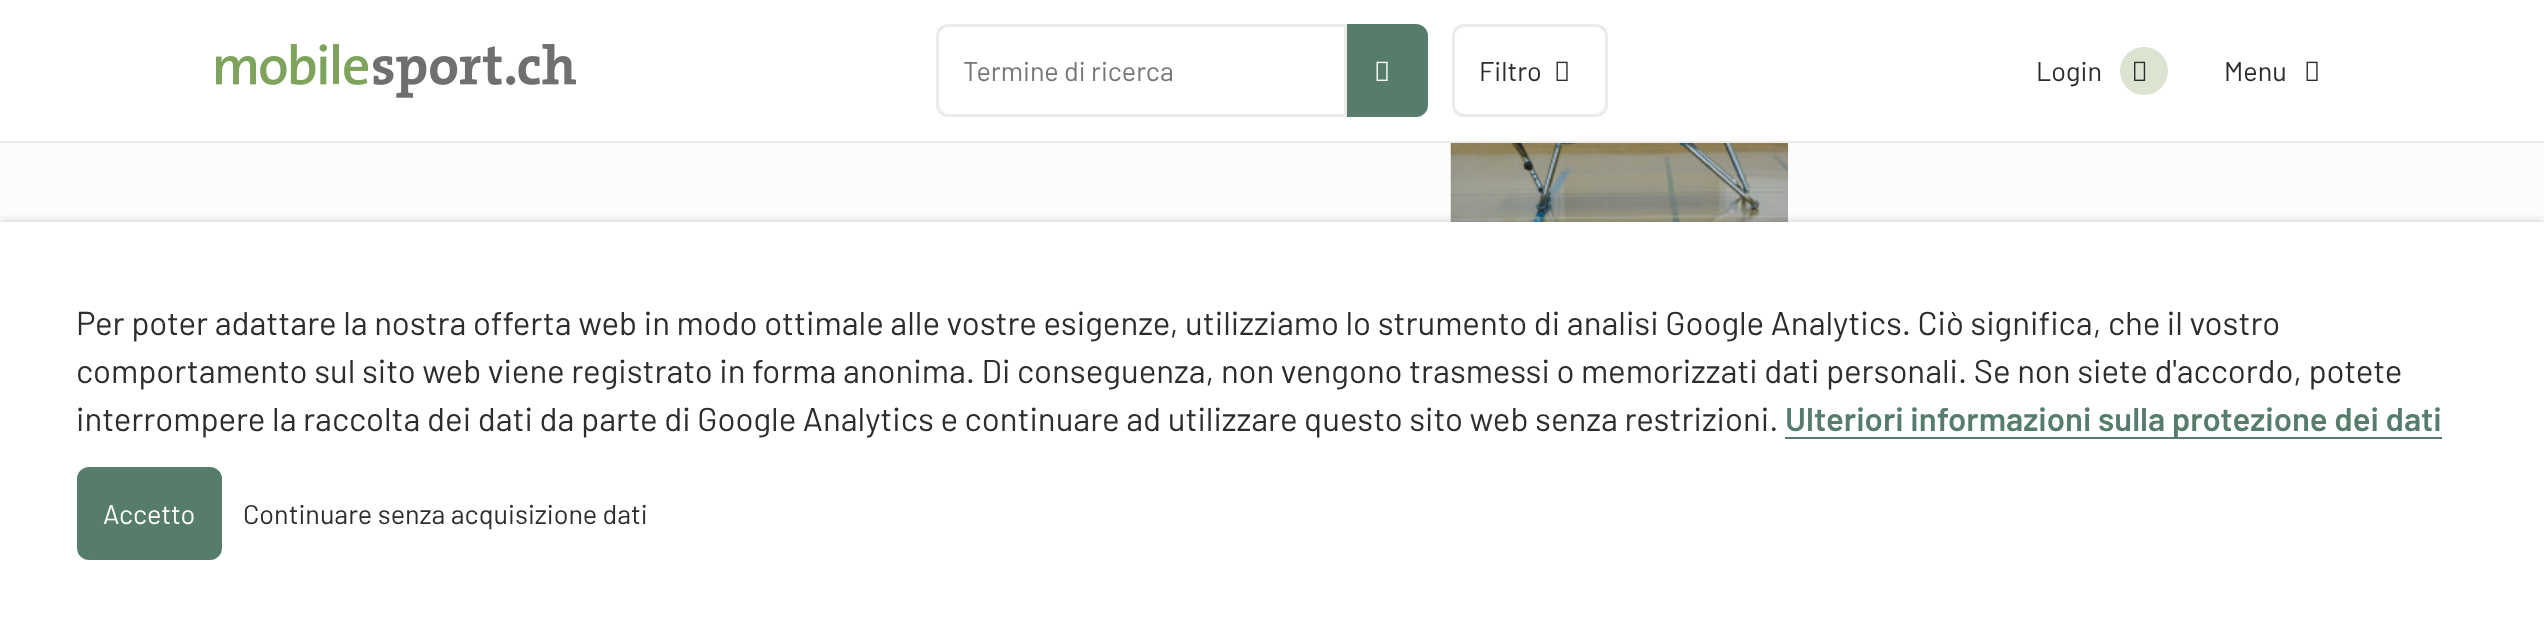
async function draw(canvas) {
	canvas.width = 2544;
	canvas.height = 636;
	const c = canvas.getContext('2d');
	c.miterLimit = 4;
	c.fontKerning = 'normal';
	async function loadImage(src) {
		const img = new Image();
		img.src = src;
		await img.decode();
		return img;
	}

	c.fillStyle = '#fcfcfc';
	c.fillRect(0, 0, 2544, 636);
	c.fillStyle = '#fff';
	c.fillRect(0, 0, 2544, 141);
	c.fillStyle = '#ebebeb';
	c.fillRect(0, 141, 2544, 2);
	c.drawImage(await loadImage('img1.png'), 216, 44, 360, 54);
	c.beginPath();
	c.roundRect(937.5, 25.5, 408, 90, [10.5, 0, 0, 10.5]);
	c.strokeStyle = '#ebebeb';
	c.lineWidth = 3;
	c.stroke();
	c.font = '27px Barlow';
	c.fillStyle = '#757575';
	c.fillText('Termine di ricerca', 963, 81);
	c.fillStyle = '#567d6c';
	c.beginPath();
	c.roundRect(1348.5, 25.5, 78, 90, [0, 10.5, 10.5, 0]);
	c.fill();
	c.strokeStyle = '#567d6c';
	c.stroke();
	c.drawImage(await loadImage('img2.png'), 1376, 61, 12, 20);
	c.beginPath();
	c.roundRect(1453.5, 25.5, 153, 90, 10.5);
	c.strokeStyle = '#ebebeb';
	c.stroke();
	c.fillStyle = '#2d2d2d';
	c.fillText('Filtro', 1479, 81);
	c.drawImage(await loadImage('img3.png'), 1556, 61, 12, 20);
	c.fillText('Login', 2036, 81);
	c.fillStyle = '#dce3d0';
	c.beginPath();
	c.arc(2144, 71, 24, 0, 2 * Math.PI);
	c.fill();
	c.drawImage(await loadImage('img4.png'), 2134, 61, 12, 20);
	c.fillStyle = '#2d2d2d';
	c.fillText('Menu', 2224, 81);
	c.drawImage(await loadImage('img3.png'), 2306, 61, 12, 20);
	c.drawImage(await loadImage('img5.png'), 1450, 143, 338, 79);
	c.fillStyle = '#00000033';
	c.filter = 'blur(4px)';
	c.beginPath();
	c.rect(0, 222, 2544, 414);
	c.fill();
	c.filter = 'none';
	c.fillStyle = '#fff';
	c.fillRect(0, 222, 2544, 414);
	c.font = '33px Barlow';
	c.fillStyle = '#2d2d2d';
	for (const [text, x, y] of [
		['Per poter adattare la nostra offerta web in modo ottimale alle vostre esigenze, utilizziamo lo strumento di analisi Google Analytics. Ciò significa, che il vostro', 76, 335],
		['comportamento sul sito web viene registrato in forma anonima. Di conseguenza, non vengono trasmessi o memorizzati dati personali. Se non siete d\'accordo, potete', 76, 383],
		['interrompere la raccolta dei dati da parte di Google Analytics e continuare ad utilizzare questo sito web senza restrizioni.', 76, 431],
	]) {
		c.fillText(text, x, y);
	}
	c.fillStyle = '#567d6c';
	c.fillRect(1785, 437, 657, 2);
	c.font = '600 33px Barlow';
	c.fillText('Ulteriori informazioni sulla protezione dei dati', 1785, 431);
	c.beginPath();
	c.roundRect(78.5, 468.5, 142, 90, 10.5);
	c.fill();
	c.strokeStyle = '#567d6c';
	c.stroke();
	c.font = '27px Barlow';
	c.fillStyle = '#fff';
	c.fillText('Accetto', 103, 524);
	c.fillStyle = '#2d2d2d';
	c.fillText('Continuare senza acquisizione dati', 243, 524);
}

draw(document.querySelector('canvas'));
